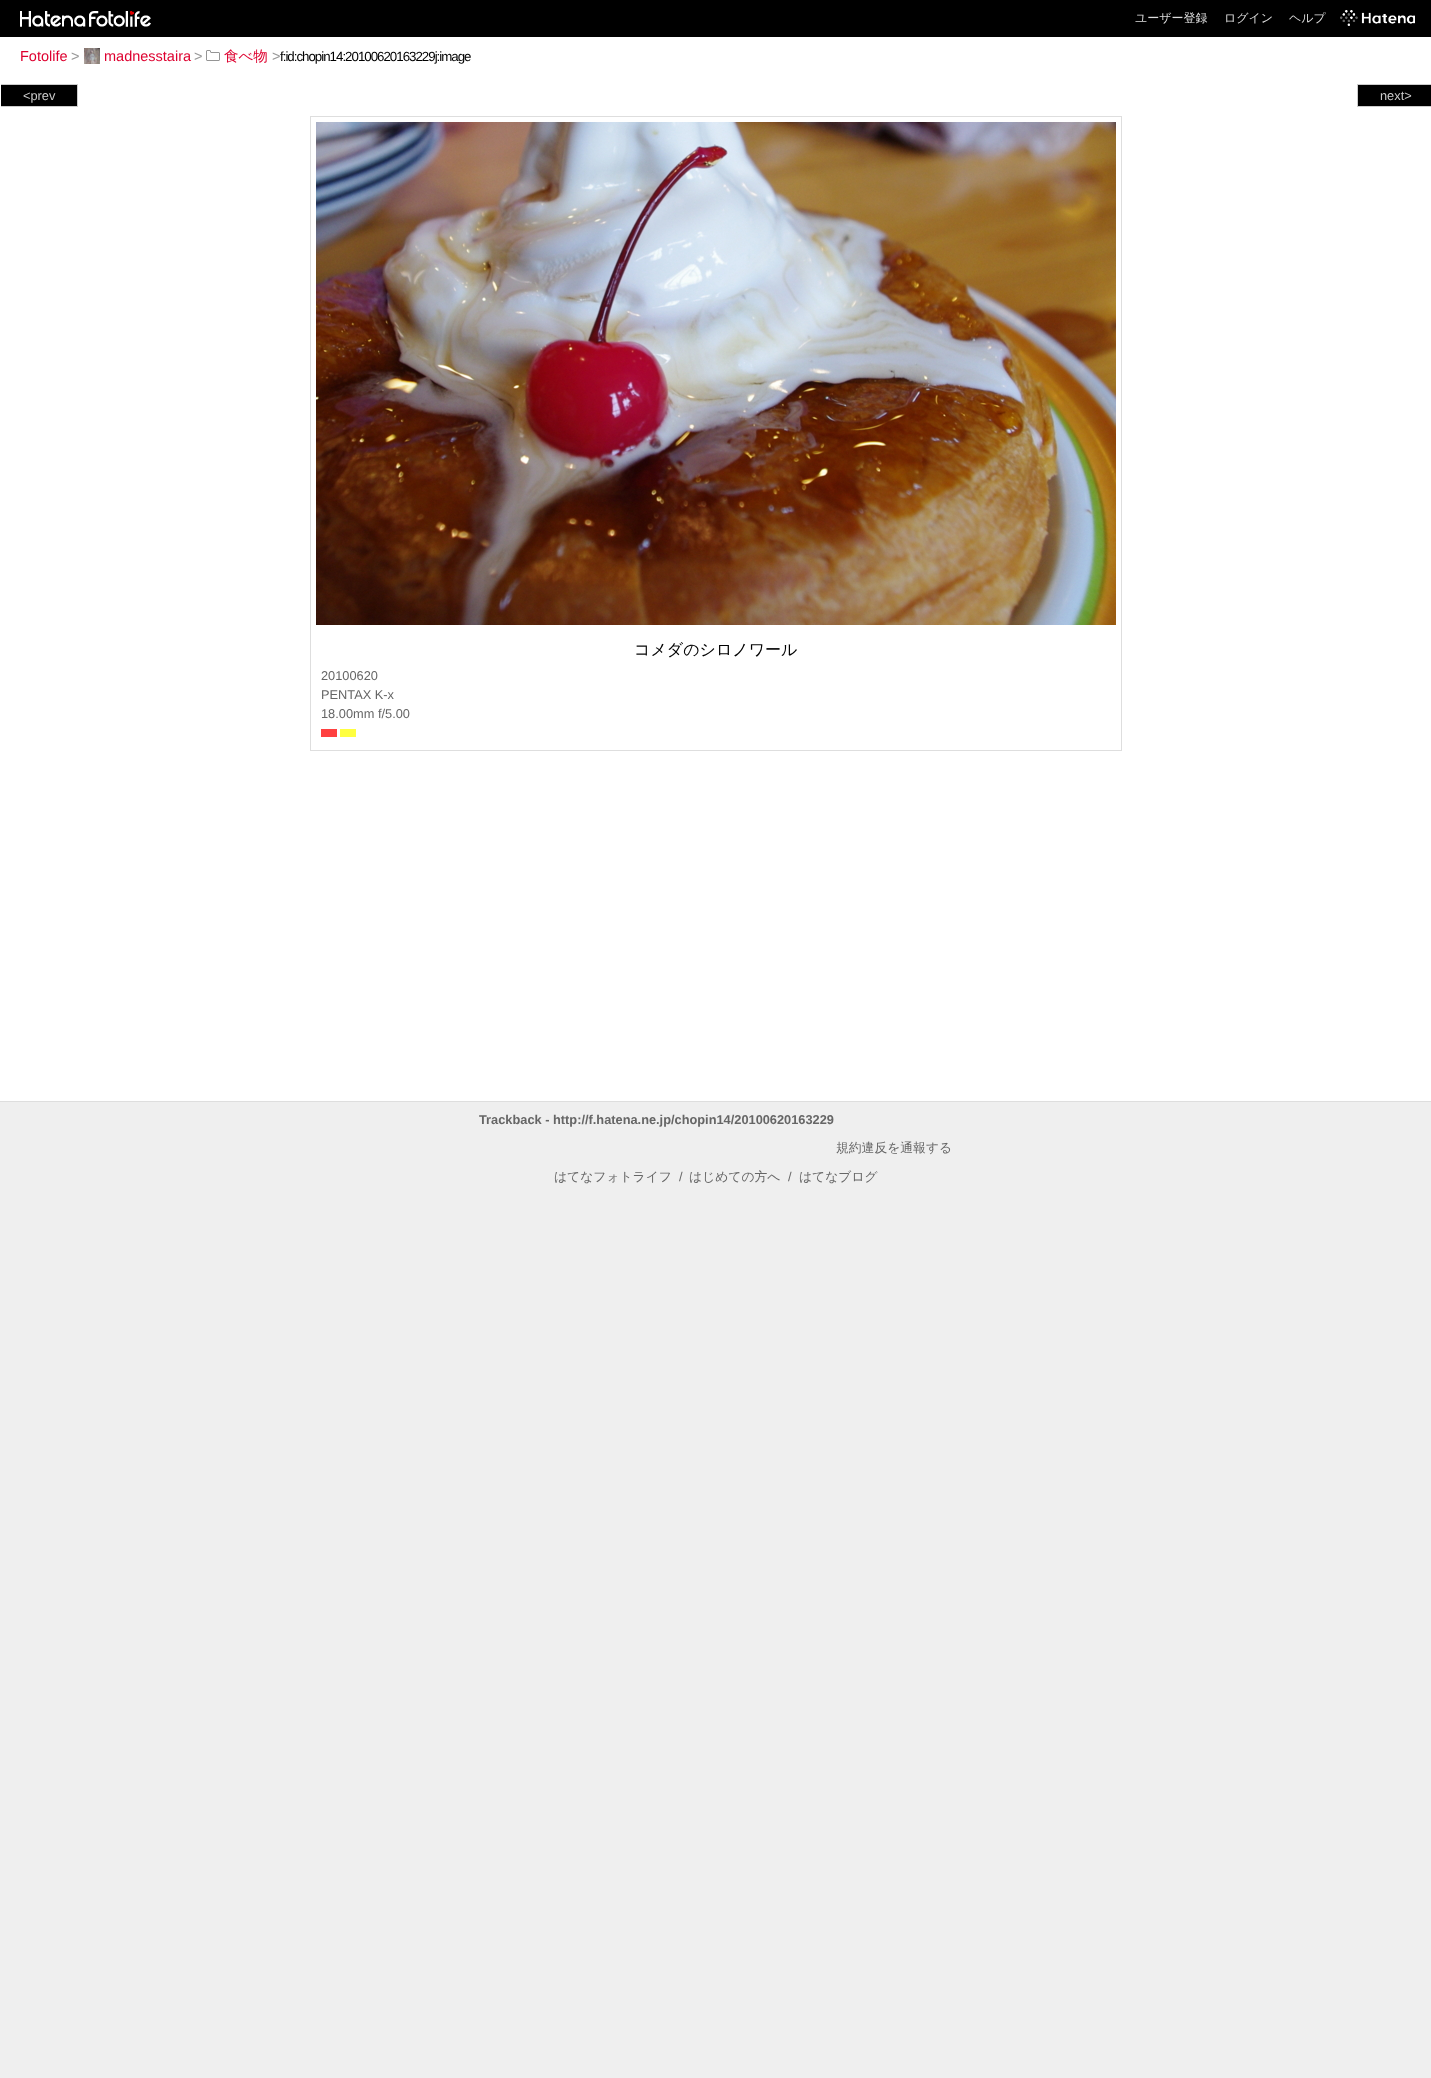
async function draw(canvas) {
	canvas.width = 1431;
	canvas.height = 2078;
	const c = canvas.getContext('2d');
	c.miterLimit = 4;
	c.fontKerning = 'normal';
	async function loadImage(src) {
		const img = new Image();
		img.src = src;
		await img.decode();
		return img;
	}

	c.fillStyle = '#efefef';
	c.fillRect(0, 0, 1431, 2078);
	c.fillStyle = '#000';
	c.fillRect(0, 0, 1431, 37);
	c.drawImage(await loadImage('img1.png'), 20, 11, 66, 16);
	c.drawImage(await loadImage('img2.png'), 89, 11, 62, 16);
	c.font = '500 12px WenQuanYi Zen Hei';
	c.fillStyle = '#ddd';
	for (const [text, x, y] of [
		['ユーザー登録', 1135, 22],
		['ログイン', 1224, 22],
		['ヘルプ', 1289, 22],
	]) {
		c.fillText(text, x, y);
	}
	c.drawImage(await loadImage('img3.png'), 1340, 10, 75, 16);
	c.fillStyle = '#fff';
	c.fillRect(0, 37, 1431, 1064);
	c.font = '14.5px Liberation Sans';
	c.fillStyle = '#de002f';
	c.fillText('Fotolife', 20, 61);
	c.fillStyle = '#999';
	c.fillText('>', 71, 61);
	c.drawImage(await loadImage('img4.png'), 84, 48, 16, 16);
	c.fillStyle = '#de002f';
	c.fillText('madnesstaira', 104, 61);
	c.fillStyle = '#999';
	c.fillText('>', 194, 61);
	c.drawImage(await loadImage('img5.png'), 206, 50, 14, 11);
	c.font = '500 14.5px WenQuanYi Zen Hei';
	c.fillStyle = '#de002f';
	c.fillText('食べ物', 224, 61);
	c.font = '14.5px Liberation Sans';
	c.fillStyle = '#999';
	c.fillText('>', 272, 61);
	c.letterSpacing = '-1px';
	c.font = '13.3px Liberation Sans';
	c.fillStyle = '#000';
	c.fillText('f:id:chopin14:20100620163229j:image', 280, 61);
	for (const [x, y, w, h, color] of [
		[0, 1101, 1431, 1, '#dedede'],
		[1, 85, 76, 21, '#000'],
		[1, 84, 77, 1, '#ccc'],
		[77, 84, 1, 23, '#ccc'],
		[1, 106, 77, 1, '#ccc'],
	]) {
		c.fillStyle = color;
		c.fillRect(x, y, w, h);
	}
	c.letterSpacing = '0px';
	c.font = '12.8px Liberation Sans';
	c.fillText('<prev', 23, 100);
	for (const [x, y, w, h, color] of [
		[1358, 85, 73, 21, '#000'],
		[1357, 84, 74, 1, '#ccc'],
		[1357, 106, 74, 1, '#ccc'],
		[1357, 84, 1, 23, '#ccc'],
	]) {
		c.fillStyle = color;
		c.fillRect(x, y, w, h);
	}
	c.fillText('next>', 1380, 100);
	c.strokeStyle = '#dedede';
	c.strokeRect(310.5, 116.5, 811, 634);
	c.drawImage(await loadImage('img6.png'), 316, 122, 800, 503);
	c.font = '500 16px WenQuanYi Zen Hei';
	c.fillStyle = '#000';
	c.fillText('コメダのシロノワール', 634, 655);
	c.font = '12.8px Liberation Sans';
	c.fillStyle = '#666';
	for (const [text, x, y] of [
		['20100620', 321, 680],
		['PENTAX K-x', 321, 699],
		['18.00mm f/5.00', 321, 718],
	]) {
		c.fillText(text, x, y);
	}
	c.fillStyle = '#ff4040';
	c.fillRect(321, 729, 16, 8);
	c.fillStyle = '#ffff40';
	c.fillRect(340, 729, 16, 8);
	c.font = 'bold 12.8px Liberation Sans';
	c.fillStyle = '#666';
	c.fillText('Trackback - http://f.hatena.ne.jp/chopin14/20100620163229', 479, 1124);
	c.font = '500 12.8px WenQuanYi Zen Hei';
	c.fillText('規約違反を通報する', 836, 1152);
	c.fillText('はてなフォトライフ', 554, 1181);
	c.font = '12.8px Liberation Sans';
	c.fillText('/', 679, 1181);
	c.font = '500 12.8px WenQuanYi Zen Hei';
	c.fillText('はじめての方へ', 689, 1181);
	c.font = '12.8px Liberation Sans';
	c.fillText('/', 788, 1181);
	c.font = '500 12.8px WenQuanYi Zen Hei';
	c.fillText('はてなブログ', 799, 1181);
}

draw(document.querySelector('canvas'));
